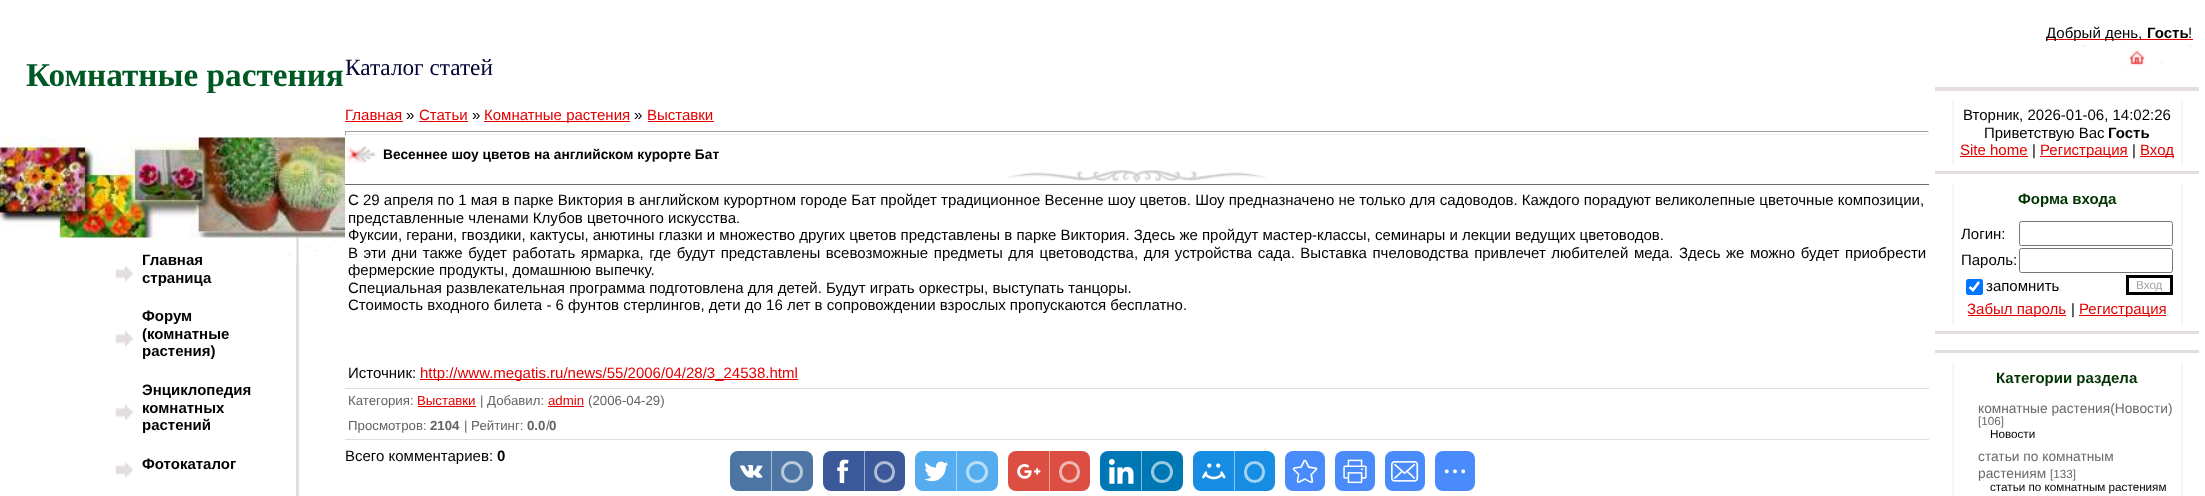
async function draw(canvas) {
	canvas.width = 2205;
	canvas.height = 496;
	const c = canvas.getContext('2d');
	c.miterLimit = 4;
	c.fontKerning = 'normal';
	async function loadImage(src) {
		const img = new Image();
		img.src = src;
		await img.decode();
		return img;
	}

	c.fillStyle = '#fff';
	c.fillRect(0, 0, 2205, 496);
	c.fillStyle = '#e30000';
	c.fillRect(2046, 39, 147, 1);
	c.font = '15px Liberation Sans';
	c.fillStyle = '#000';
	c.fillText('Добрый день,', 2046, 38);
	c.font = 'bold 15px Liberation Sans';
	c.fillText('Гость', 2147, 38);
	c.font = '15px Liberation Sans';
	c.fillText('!', 2188, 38);
	c.drawImage(await loadImage('img1.png'), 2082, 45, 110, 23);
	c.font = 'bold 33.25px Liberation Serif';
	c.fillStyle = '#005825';
	c.fillText('Комнатные растения', 26, 86);
	c.fillStyle = '#e3dddd';
	c.fillRect(296, 137, 3, 359);
	c.drawImage(await loadImage('img3.png'), 287, 237, 47, 27);
	c.drawImage(await loadImage('img2.png'), 0, 137, 345, 101);
	c.drawImage(await loadImage('img4.png'), 115, 265, 19, 17);
	c.font = 'bold 15px Liberation Sans';
	c.fillStyle = '#000';
	c.fillText('Главная', 142, 265);
	c.fillText('страница', 142, 283);
	c.drawImage(await loadImage('img4.png'), 115, 330, 19, 17);
	for (const [text, x, y] of [
		['Форум', 142, 321],
		['(комнатные', 142, 339],
		['растения)', 142, 356],
	]) {
		c.fillText(text, x, y);
	}
	c.drawImage(await loadImage('img5.png'), 115, 404, 19, 17);
	for (const [text, x, y] of [
		['Энциклопедия', 142, 395],
		['комнатных', 142, 413],
		['растений', 142, 430],
	]) {
		c.fillText(text, x, y);
	}
	c.drawImage(await loadImage('img6.png'), 115, 461, 18, 17);
	c.fillText('Фотокаталог', 142, 469);
	c.font = '23.25px Liberation Serif';
	c.fillStyle = '#003';
	c.fillText('Каталог статей', 345, 75);
	c.font = '15px Liberation Sans';
	c.fillStyle = '#e30000';
	c.fillText('Главная', 345, 120);
	c.fillRect(345, 121, 58, 1);
	c.fillStyle = '#000';
	c.fillText('»', 406, 120);
	c.fillStyle = '#e30000';
	c.fillText('Статьи', 419, 120);
	c.fillRect(419, 121, 49, 1);
	c.fillStyle = '#000';
	c.fillText('»', 472, 120);
	c.fillStyle = '#e30000';
	c.fillRect(484, 121, 146, 1);
	c.fillText('Комнатные растения', 484, 120);
	c.fillStyle = '#000';
	c.fillText('»', 634, 120);
	c.fillStyle = '#e30000';
	c.fillText('Выставки', 647, 120);
	for (const [x, y, w, h, color] of [
		[648, 121, 66, 1, '#e30000'],
		[345, 131, 1584, 1, '#9f9f9f'],
		[1928, 131, 1, 4, '#eee'],
		[345, 134, 1584, 1, '#eee'],
		[345, 131, 1, 4, '#9f9f9f'],
	]) {
		c.fillStyle = color;
		c.fillRect(x, y, w, h);
	}
	c.drawImage(await loadImage('img7.png'), 345, 146, 31, 18);
	c.font = 'bold 13.75px Liberation Sans';
	c.fillStyle = '#000';
	c.fillText('Весеннее шоу цветов на английском курорте Бат', 383, 159);
	c.drawImage(await loadImage('img8.png'), 1008, 170, 258, 14);
	c.fillStyle = '#ddd';
	c.fillRect(345, 439, 1584, 1);
	c.fillStyle = '#6a6a6a';
	c.fillRect(345, 184, 1584, 1);
	c.font = '15px Liberation Sans';
	c.fillStyle = '#000';
	for (const [text, x, y] of [
		['С 29 апреля по 1 мая в парке Виктория в английском курортном городе Бат пройдет традиционное Весенне шоу цветов. Шоу предназначено не только для садоводов. Каждого порадуют великолепные цветочные композиции,', 348, 205],
		['представленные членами Клубов цветочного искусства.', 348, 223],
		['Фуксии, герани, гвоздики, кактусы, анютины глазки и множество других цветов представлены в парке Виктория. Здесь же пройдут мастер-классы, семинары и лекции ведущих цветоводов.', 348, 240],
	]) {
		c.fillText(text, x, y);
	}
	c.wordSpacing = '1.4px';
	c.fillText('В эти дни также будет работать ярмарка, где будут представлены всевозможные предметы для цветоводства, для устройства сада. Выставка пчеловодства привлечет любителей меда. Здесь же можно будет приобрести', 348, 258);
	c.wordSpacing = '0px';
	for (const [text, x, y] of [
		['фермерские продукты, домашнюю выпечку.', 348, 275],
		['Специальная развлекательная программа подготовлена для детей. Будут играть оркестры, выступать танцоры.', 348, 293],
		['Стоимость входного билета - 6 фунтов стерлингов, дети до 16 лет в сопровождении взрослых пропускаются бесплатно.', 348, 310],
		['Источник:', 348, 378],
	]) {
		c.fillText(text, x, y);
	}
	c.fillStyle = '#e30000';
	c.fillRect(420, 379, 378, 1);
	c.fillText('http://www.megatis.ru/news/55/2006/04/28/3_24538.html', 420, 378);
	c.fillStyle = '#ddd';
	c.fillRect(345, 388, 1584, 1);
	c.font = '13.25px Liberation Sans';
	c.fillStyle = '#636363';
	c.fillText('Категория:', 348, 405);
	c.fillStyle = '#e30000';
	c.fillText('Выставки', 417, 405);
	c.fillRect(418, 406, 58, 1);
	c.fillStyle = '#636363';
	c.fillText('| Добавил:', 480, 405);
	c.fillStyle = '#e30000';
	c.fillText('admin', 548, 405);
	c.fillRect(548, 406, 36, 1);
	c.fillStyle = '#636363';
	c.fillText('(2006-04-29)', 588, 405);
	c.fillText('Просмотров:', 348, 430);
	c.font = 'bold 13.25px Liberation Sans';
	c.fillText('2104', 430, 430);
	c.font = '13.25px Liberation Sans';
	c.fillText('| Рейтинг:', 464, 430);
	c.font = 'bold 13.25px Liberation Sans';
	c.fillText('0.0', 527, 430);
	c.font = '13.25px Liberation Sans';
	c.fillText('/', 546, 430);
	c.font = 'bold 13.25px Liberation Sans';
	c.fillText('0', 549, 430);
	c.font = '15px Liberation Sans';
	c.fillStyle = '#000';
	c.fillText('Всего комментариев:', 345, 461);
	c.font = 'bold 15px Liberation Sans';
	c.fillText('0', 497, 461);
	c.fillStyle = '#e4dede';
	c.fillRect(1935, 87, 264, 4);
	c.drawImage(await loadImage('img9.png'), 1952, 100, 231, 65);
	c.font = '15px Liberation Sans';
	c.fillStyle = '#000';
	c.fillText('Вторник, 2026-01-06, 14:02:26', 1963, 120);
	c.fillText('Приветствую Вас', 1984, 138);
	c.font = 'bold 15px Liberation Sans';
	c.fillText('Гость', 2108, 138);
	c.font = '15px Liberation Sans';
	c.fillStyle = '#e30000';
	c.fillText('Site home', 1960, 155);
	c.fillRect(1960, 156, 68, 1);
	c.fillStyle = '#000';
	c.fillText('|', 2032, 155);
	c.fillStyle = '#e30000';
	c.fillRect(2040, 156, 88, 1);
	c.fillText('Регистрация', 2040, 155);
	c.fillStyle = '#000';
	c.fillText('|', 2132, 155);
	c.fillStyle = '#e30000';
	c.fillRect(2140, 156, 34, 1);
	c.fillText('Вход', 2140, 155);
	c.fillStyle = '#e3dddd';
	c.fillRect(1935, 171, 264, 3);
	c.drawImage(await loadImage('img10.png'), 1952, 184, 231, 30);
	c.font = 'bold 15px Liberation Sans';
	c.fillStyle = '#030';
	c.fillText('Форма входа', 2018, 204);
	c.drawImage(await loadImage('img11.png'), 1952, 214, 231, 111);
	c.font = '15px Liberation Sans';
	c.fillStyle = '#000';
	c.fillText('Логин:', 1961, 239);
	c.beginPath();
	c.roundRect(2019.5, 221.5, 153, 24, 2);
	c.strokeStyle = '#767676';
	c.stroke();
	c.fillText('Пароль:', 1961, 265);
	c.beginPath();
	c.roundRect(2019.5, 248.5, 153, 24, 2);
	c.stroke();
	c.fillStyle = '#0075ff';
	c.beginPath();
	c.roundRect(1966, 279, 17, 16, 2.5);
	c.fill();
	c.beginPath();
	c.moveTo(1969.5, 287);
	c.lineTo(1973, 290);
	c.lineTo(1979, 282);
	c.strokeStyle = '#fff';
	c.lineWidth = 2.6;
	c.stroke();
	c.fillStyle = '#000';
	c.fillText('запомнить', 1986, 291);
	c.strokeStyle = '#000';
	c.lineWidth = 3;
	c.strokeRect(2127.5, 276.5, 44, 17);
	c.font = '11.7px Liberation Sans';
	c.fillStyle = '#a4a4a4';
	c.fillText('Вход', 2136, 289);
	c.fillStyle = '#e30000';
	c.fillRect(1968, 315, 98, 1);
	c.font = '15px Liberation Sans';
	c.fillText('Забыл пароль', 1967, 314);
	c.fillStyle = '#000';
	c.fillText('|', 2071, 314);
	c.fillStyle = '#e30000';
	c.fillRect(2079, 315, 87, 1);
	c.fillText('Регистрация', 2079, 314);
	c.fillStyle = '#e3dddd';
	c.fillRect(1935, 331, 264, 3);
	c.fillRect(1935, 350, 264, 3);
	c.drawImage(await loadImage('img12.png'), 1952, 362, 231, 31);
	c.font = 'bold 15px Liberation Sans';
	c.fillStyle = '#030';
	c.fillText('Категории раздела', 1996, 383);
	c.drawImage(await loadImage('img13.png'), 1952, 393, 231, 103);
	c.font = '13.75px Liberation Sans';
	c.fillStyle = '#6a6a6a';
	c.fillText('комнатные растения(Новости)', 1978, 413);
	c.font = '11.7px Liberation Sans';
	c.fillText('[106]', 1978, 425);
	c.fillStyle = '#000';
	c.fillText('Новости', 1990, 438);
	c.font = '13.75px Liberation Sans';
	c.fillStyle = '#6a6a6a';
	c.fillText('статьи по комнатным', 1978, 461);
	c.fillText('растениям', 1978, 478);
	c.font = '11.7px Liberation Sans';
	c.fillText('[133]', 2050, 478);
	c.fillStyle = '#000';
	c.fillText('статьи по комнатным растениям', 1990, 491);
	c.fillStyle = '#4d75a3';
	c.beginPath();
	c.roundRect(730, 451, 83, 40, 8);
	c.fill();
	c.drawImage(await loadImage('img14.png'), 740, 465, 23, 13);
	c.fillStyle = '#a6bad1';
	c.fillRect(771, 451, 1, 40);
	c.beginPath();
	c.arc(792, 472, 9.5, 0, 2 * Math.PI);
	c.strokeStyle = '#b8c8da';
	c.stroke();
	c.fillStyle = '#3b5998';
	c.beginPath();
	c.roundRect(823, 451, 82, 40, 8);
	c.fill();
	c.drawImage(await loadImage('img15.png'), 837, 459, 12, 25);
	c.fillStyle = '#9daccc';
	c.fillRect(864, 451, 1, 40);
	c.beginPath();
	c.roundRect(875.5, 462.5, 18, 19, 9);
	c.strokeStyle = '#b1bdd6';
	c.stroke();
	c.fillStyle = '#55acee';
	c.beginPath();
	c.roundRect(915, 451, 83, 40, 8);
	c.fill();
	c.drawImage(await loadImage('img16.png'), 924, 461, 25, 21);
	c.fillStyle = '#aad6f7';
	c.fillRect(956, 451, 1, 40);
	c.beginPath();
	c.arc(977, 472, 9.5, 0, 2 * Math.PI);
	c.strokeStyle = '#bbdef8';
	c.stroke();
	c.fillStyle = '#dc4e41';
	c.beginPath();
	c.roundRect(1008, 451, 82, 40, 8);
	c.fill();
	c.drawImage(await loadImage('img17.png'), 1017, 464, 24, 15);
	c.fillStyle = '#eea7a0';
	c.fillRect(1049, 451, 1, 40);
	c.beginPath();
	c.roundRect(1060.5, 462.5, 18, 19, 9);
	c.strokeStyle = '#f1b8b3';
	c.stroke();
	c.fillStyle = '#0077b5';
	c.beginPath();
	c.roundRect(1100, 451, 83, 40, 8);
	c.fill();
	c.drawImage(await loadImage('img18.png'), 1108, 459, 26, 25);
	c.fillStyle = '#80bbda';
	c.fillRect(1141, 451, 1, 40);
	c.beginPath();
	c.arc(1162, 472, 9.5, 0, 2 * Math.PI);
	c.strokeStyle = '#99c9e1';
	c.stroke();
	c.fillStyle = '#168de2';
	c.beginPath();
	c.roundRect(1193, 451, 82, 40, 8);
	c.fill();
	c.drawImage(await loadImage('img19.png'), 1202, 463, 24, 17);
	c.fillStyle = '#8bc6f1';
	c.fillRect(1234, 451, 1, 40);
	c.beginPath();
	c.roundRect(1245.5, 462.5, 18, 19, 9);
	c.strokeStyle = '#a2d1f3';
	c.stroke();
	c.fillStyle = '#498bfa';
	c.beginPath();
	c.roundRect(1285, 451, 40, 40, 8);
	c.fill();
	c.drawImage(await loadImage('img20.png'), 1292, 459, 26, 24);
	c.beginPath();
	c.roundRect(1335, 451, 40, 40, 8);
	c.fill();
	c.drawImage(await loadImage('img21.png'), 1343, 459, 24, 25);
	c.beginPath();
	c.roundRect(1385, 451, 40, 40, 8);
	c.fill();
	c.drawImage(await loadImage('img22.png'), 1391, 461, 28, 21);
	c.beginPath();
	c.roundRect(1435, 451, 40, 40, 8);
	c.fill();
	c.drawImage(await loadImage('img23.png'), 1444, 469, 22, 5);
}

draw(document.querySelector('canvas'));
